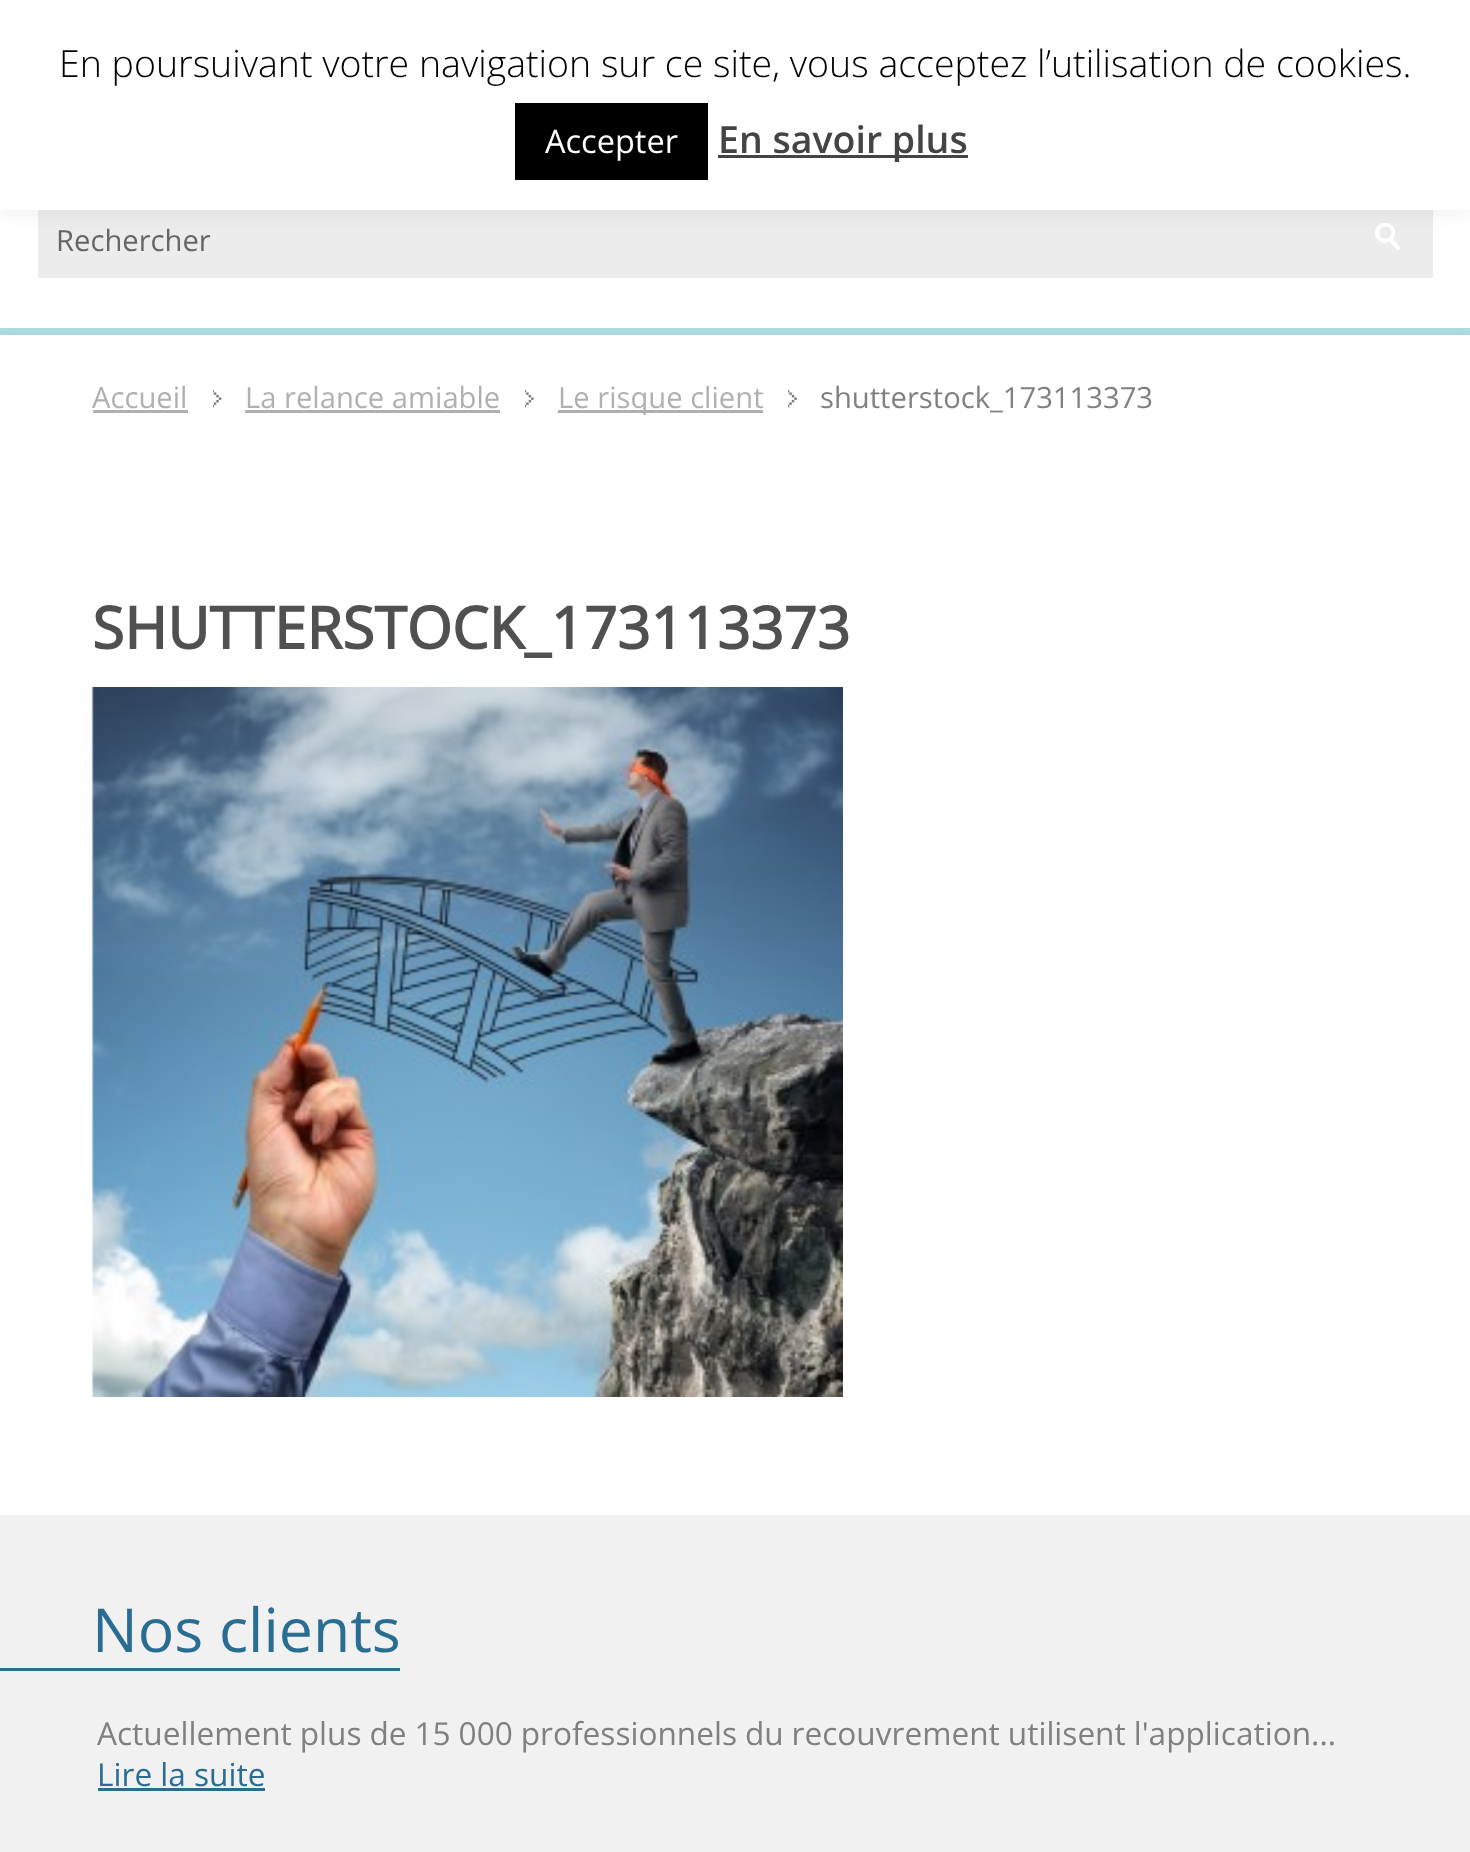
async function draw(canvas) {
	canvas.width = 1470;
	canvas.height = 1852;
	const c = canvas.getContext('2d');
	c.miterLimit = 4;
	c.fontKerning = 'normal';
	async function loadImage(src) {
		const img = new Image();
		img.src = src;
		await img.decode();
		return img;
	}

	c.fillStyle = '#fff';
	c.fillRect(0, 0, 1470, 1852);
	c.fillStyle = '#ececec';
	c.fillRect(38, 210, 1395, 68);
	c.drawImage(await loadImage('img1.png'), 1375, 223, 25, 27);
	c.fillStyle = '#acabab4d';
	c.filter = 'blur(12.5px)';
	c.beginPath();
	c.rect(0, -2, 1470, 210);
	c.fill();
	c.filter = 'none';
	c.fillStyle = '#fff';
	c.fillRect(0, 0, 1470, 210);
	c.font = '300 37.5px Open Sans';
	c.fillStyle = '#000';
	c.fillText('En poursuivant votre navigation sur ce site, vous acceptez l’utilisation de cookies.', 59, 77);
	c.fillRect(515, 103, 193, 77);
	c.font = '32.5px Open Sans';
	c.fillStyle = '#fff';
	c.fillText('Accepter', 545, 153);
	c.fillStyle = '#444';
	c.fillRect(718, 155, 250, 3);
	c.font = '600 37.5px Open Sans';
	c.fillText('En savoir plus', 718, 153);
	c.fillStyle = '#acdce2';
	c.fillRect(0, 328, 1470, 7);
	c.font = '29.2px Open Sans';
	c.fillStyle = '#666';
	c.fillText('Rechercher', 56, 251);
	c.fillStyle = '#00000059';
	c.filter = 'blur(6px)';
	c.beginPath();
	c.rect(0, 343, 1470, 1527);
	c.fill();
	c.filter = 'none';
	c.fillStyle = '#fff';
	c.fillRect(0, 335, 1470, 1180);
	c.fillStyle = '#b0b0b0';
	c.fillText('Accueil', 92, 408);
	c.fillRect(93, 410, 95, 3);
	c.drawImage(await loadImage('img2.png'), 213, 390, 9, 18);
	c.fillText('La relance amiable', 245, 408);
	c.fillRect(245, 410, 255, 3);
	c.drawImage(await loadImage('img3.png'), 525, 390, 9, 18);
	c.fillRect(558, 410, 205, 3);
	c.fillText('Le risque client', 558, 408);
	c.drawImage(await loadImage('img4.png'), 788, 390, 9, 18);
	c.fillStyle = '#808080';
	c.fillText('shutterstock_173113373', 820, 408);
	c.font = 'bold 58.25px Open Sans';
	c.fillStyle = '#505050';
	c.fillText('SHUTTERSTOCK_173113373', 92, 649);
	c.drawImage(await loadImage('img5.png'), 91, 687, 752, 710);
	c.fillStyle = '#f1f1f1';
	c.fillRect(0, 1515, 1470, 337);
	c.fillStyle = '#296d92';
	c.fillRect(0, 1668, 400, 3);
	c.font = '60.75px Open Sans';
	c.fillText('Nos clients', 92, 1652);
	c.wordSpacing = '-0.25px';
	c.font = '31.6px Open Sans';
	c.fillStyle = '#808080';
	c.fillText('Actuellement plus de 15 000 professionnels du recouvrement utilisent l\'application...', 97, 1745);
	c.wordSpacing = '0px';
	c.fillStyle = '#296d92';
	c.fillText('Lire la suite', 97, 1786);
	c.fillRect(98, 1788, 167, 3);
}

draw(document.querySelector('canvas'));
